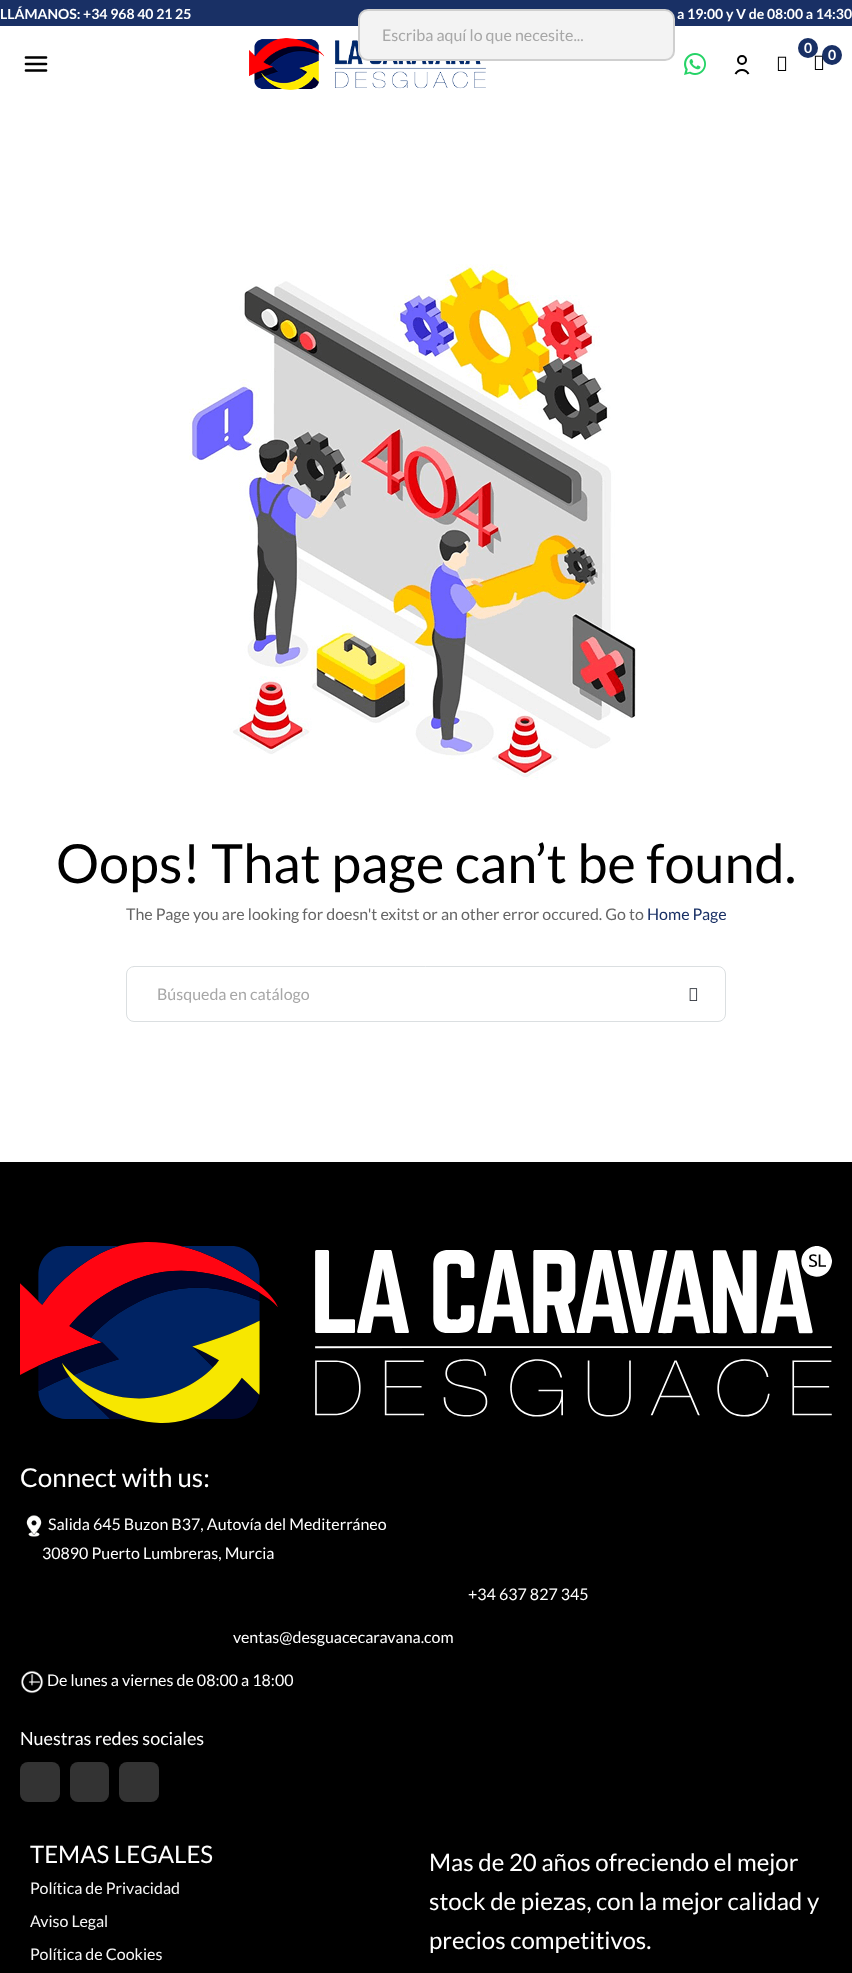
async function draw(canvas) {
	canvas.width = 852;
	canvas.height = 1973;
	const c = canvas.getContext('2d');
	c.miterLimit = 4;
	c.fontKerning = 'normal';
	async function loadImage(src) {
		const img = new Image();
		img.src = src;
		await img.decode();
		return img;
	}

	c.fillStyle = '#fff';
	c.fillRect(0, 0, 852, 1973);
	c.fillStyle = '#193065';
	c.fillRect(0, 0, 852, 26);
	c.font = 'bold 14px Lato';
	c.fillStyle = '#fff';
	c.fillText('LLÁMANOS: +34 968 40 21 25', 0, 19);
	c.fillText('a 19:00 y V de 08:00 a 14:30', 677, 19);
	c.drawImage(await loadImage('img1.png'), 249, 38, 237, 52);
	c.fillStyle = '#f3f3f3';
	c.beginPath();
	c.roundRect(359, 10, 315, 50, 9);
	c.fill();
	c.strokeStyle = '#cfcfcf';
	c.lineWidth = 2;
	c.stroke();
	c.font = '16px Lato';
	c.fillStyle = '#a7a7a7';
	c.fillText('Escriba aquí lo que necesite...', 382, 41);
	c.drawImage(await loadImage('img2.png'), 684, 53, 22, 22);
	c.beginPath();
	c.arc(742, 60, 4, 0, 2 * Math.PI);
	c.strokeStyle = '#000';
	c.stroke();
	c.beginPath();
	c.moveTo(735.5, 74);
	c.bezierCurveTo(738, 68.5, 746, 68.5, 748.5, 74);
	c.stroke();
	c.fillStyle = '#193065';
	c.beginPath();
	c.arc(808, 48, 10, 0, 2 * Math.PI);
	c.fill();
	c.font = 'bold 14px Lato';
	c.fillStyle = '#fff';
	c.fillText('0', 804, 53);
	c.drawImage(await loadImage('img3.png'), 777, 56, 10, 15);
	c.drawImage(await loadImage('img4.png'), 814, 55, 10, 15);
	c.fillStyle = '#193065';
	c.beginPath();
	c.arc(832, 55, 10, 0, 2 * Math.PI);
	c.fill();
	c.fillStyle = '#fff';
	c.fillText('0', 828, 60);
	c.beginPath();
	c.moveTo(26, 57.5);
	c.lineTo(46, 57.5);
	c.moveTo(26, 64);
	c.lineTo(46, 64);
	c.moveTo(26, 70.5);
	c.lineTo(46, 70.5);
	c.lineWidth = 2.7;
	c.lineCap = 'round';
	c.lineJoin = 'round';
	c.stroke();
	c.drawImage(await loadImage('img5.png'), 189, 264, 448, 516);
	c.font = '54px Lato';
	c.fillStyle = '#000';
	c.fillText('Oops! That page can’t be found.', 56, 883);
	c.font = '16px Lato';
	c.fillStyle = '#666';
	c.fillText('The Page you are looking for doesn\'t exitst or an other error occured. Go to', 126, 920);
	c.fillStyle = '#193065';
	c.fillText('Home Page', 647, 920);
	c.beginPath();
	c.roundRect(126.5, 966.5, 599, 55, 7.5);
	c.strokeStyle = '#dbdfe1';
	c.lineWidth = 1;
	c.lineJoin = 'miter';
	c.stroke();
	c.fillStyle = '#a7a7a7';
	c.fillText('Búsqueda en catálogo', 157, 1000);
	c.drawImage(await loadImage('img6.png'), 689, 988, 9, 13);
	c.fillStyle = '#000';
	c.fillRect(0, 1162, 852, 811);
	c.drawImage(await loadImage('img7.png'), 20, 1242, 812, 181);
	c.font = '26px Lato';
	c.fillStyle = '#fff';
	c.fillText('Connect with us:', 20, 1487);
	c.drawImage(await loadImage('img8.png'), 26, 1515, 16, 22);
	c.font = '16px Lato';
	for (const [text, x, y] of [
		['Salida 645 Buzon B37, Autovía del Mediterráneo', 48, 1530],
		['30890 Puerto Lumbreras, Murcia', 42, 1559],
		['+34 637 827 345', 468, 1600],
		['ventas@desguacecaravana.com', 233, 1643],
	]) {
		c.fillText(text, x, y);
	}
	c.drawImage(await loadImage('img9.png'), 20, 1670, 24, 24);
	c.fillText('De lunes a viernes de 08:00 a 18:00', 47, 1686);
	c.font = '18px Lato';
	c.fillText('Nuestras redes sociales', 20, 1745);
	c.fillStyle = '#333';
	c.beginPath();
	c.roundRect(20, 1762, 40, 40, 8);
	c.fill();
	c.beginPath();
	c.roundRect(70, 1762, 39, 40, 8);
	c.fill();
	c.beginPath();
	c.roundRect(119, 1762, 40, 40, 8);
	c.fill();
	c.font = '24px Lato';
	c.fillStyle = '#fff';
	c.fillText('TEMAS LEGALES', 30, 1863);
	c.font = '16px Lato';
	c.fillStyle = '#f7f7f7';
	for (const [text, x, y] of [
		['Política de Privacidad', 30, 1894],
		['Aviso Legal', 30, 1927],
		['Política de Cookies', 30, 1960],
	]) {
		c.fillText(text, x, y);
	}
	c.font = '24px Lato';
	c.fillStyle = '#fff';
	for (const [text, x, y] of [
		['Mas de 20 años ofreciendo el mejor', 429, 1871],
		['stock de piezas, con la mejor calidad y', 429, 1910],
		['precios competitivos.', 429, 1949],
	]) {
		c.fillText(text, x, y);
	}
}

draw(document.querySelector('canvas'));
